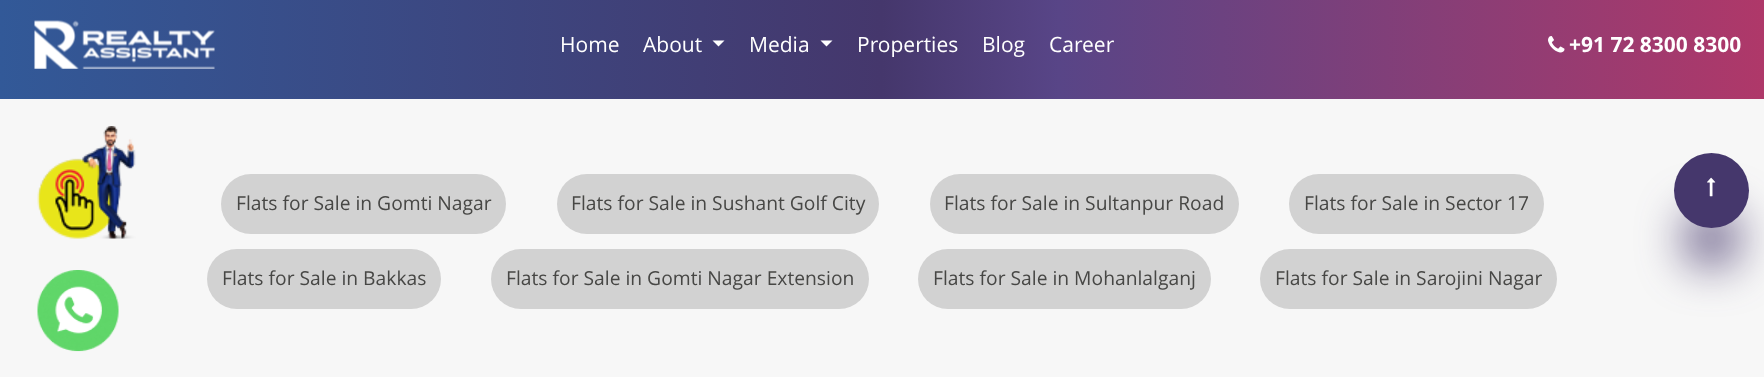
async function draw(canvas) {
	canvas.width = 1764;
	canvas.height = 377;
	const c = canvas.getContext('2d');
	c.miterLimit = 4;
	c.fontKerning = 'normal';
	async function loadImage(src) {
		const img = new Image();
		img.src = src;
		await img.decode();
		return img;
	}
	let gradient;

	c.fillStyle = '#f7f7f7';
	c.fillRect(0, 0, 1764, 377);
	gradient = c.createLinearGradient(0, 50, 1764, 49);
	gradient.addColorStop(0, '#325998');
	gradient.addColorStop(0.5, '#45376c');
	gradient.addColorStop(0.6, '#584587');
	gradient.addColorStop(1, '#af3869');
	c.fillStyle = gradient;
	c.fillRect(0, 0, 1764, 99);
	c.drawImage(await loadImage('img1.png'), 34, 20, 181, 49);
	c.font = '21px Open Sans';
	c.fillStyle = '#fff';
	c.fillText('Home', 560, 52);
	c.fillText('About', 643, 52);
	c.beginPath();
	c.moveTo(712.5, 40.5);
	c.lineTo(724.5, 40.5);
	c.lineTo(718.5, 46.5);
	c.closePath();
	c.fill();
	c.fillText('Media', 749, 52);
	c.beginPath();
	c.moveTo(820.5, 40.5);
	c.lineTo(832.5, 40.5);
	c.lineTo(826.5, 46.5);
	c.closePath();
	c.fill();
	for (const [text, x, y] of [
		['Properties', 857, 52],
		['Blog', 982, 52],
		['Career', 1049, 52],
	]) {
		c.fillText(text, x, y);
	}
	c.drawImage(await loadImage('img2.png'), 1548, 36, 17, 17);
	c.font = 'bold 21px Open Sans';
	c.fillText('+91 72 8300 8300', 1569, 52);
	c.drawImage(await loadImage('img3.png'), 37, 126, 99, 113);
	c.fillStyle = '#d2d2d2';
	c.beginPath();
	c.roundRect(221, 174, 285, 60, 30);
	c.fill();
	c.font = '19.25px Open Sans';
	c.fillStyle = '#474745';
	c.fillText('Flats for Sale in Gomti Nagar', 236, 210);
	c.fillStyle = '#d2d2d2';
	c.beginPath();
	c.roundRect(557, 174, 322, 60, 30);
	c.fill();
	c.fillStyle = '#474745';
	c.fillText('Flats for Sale in Sushant Golf City', 571, 210);
	c.fillStyle = '#d2d2d2';
	c.beginPath();
	c.roundRect(930, 174, 309, 60, 30);
	c.fill();
	c.fillStyle = '#474745';
	c.fillText('Flats for Sale in Sultanpur Road', 944, 210);
	c.fillStyle = '#d2d2d2';
	c.beginPath();
	c.roundRect(1289, 174, 255, 60, 30);
	c.fill();
	c.fillStyle = '#474745';
	c.fillText('Flats for Sale in Sector 17', 1304, 210);
	c.fillStyle = '#d2d2d2';
	c.beginPath();
	c.roundRect(207, 249, 234, 60, 30);
	c.fill();
	c.fillStyle = '#474745';
	c.fillText('Flats for Sale in Bakkas', 222, 285);
	c.fillStyle = '#d2d2d2';
	c.beginPath();
	c.roundRect(491, 249, 378, 60, 30);
	c.fill();
	c.fillStyle = '#474745';
	c.fillText('Flats for Sale in Gomti Nagar Extension', 506, 285);
	c.fillStyle = '#d2d2d2';
	c.beginPath();
	c.roundRect(918, 249, 293, 60, 30);
	c.fill();
	c.fillStyle = '#474745';
	c.fillText('Flats for Sale in Mohanlalganj', 933, 285);
	c.fillStyle = '#d2d2d2';
	c.beginPath();
	c.roundRect(1260, 249, 297, 60, 30);
	c.fill();
	c.fillStyle = '#474745';
	c.fillText('Flats for Sale in Sarojini Nagar', 1275, 285);
	c.fillStyle = '#45376c';
	c.filter = 'blur(24px)';
	c.beginPath();
	c.roundRect(1686, 213, 51, 51, 25.5);
	c.fill();
	c.filter = 'none';
	c.beginPath();
	c.arc(1711.5, 190.5, 37.5, 0, 2 * Math.PI);
	c.fill();
	c.drawImage(await loadImage('img4.png'), 1707, 177, 9, 20);
	c.drawImage(await loadImage('img5.png'), 37, 270, 82, 82);
}

draw(document.querySelector('canvas'));
